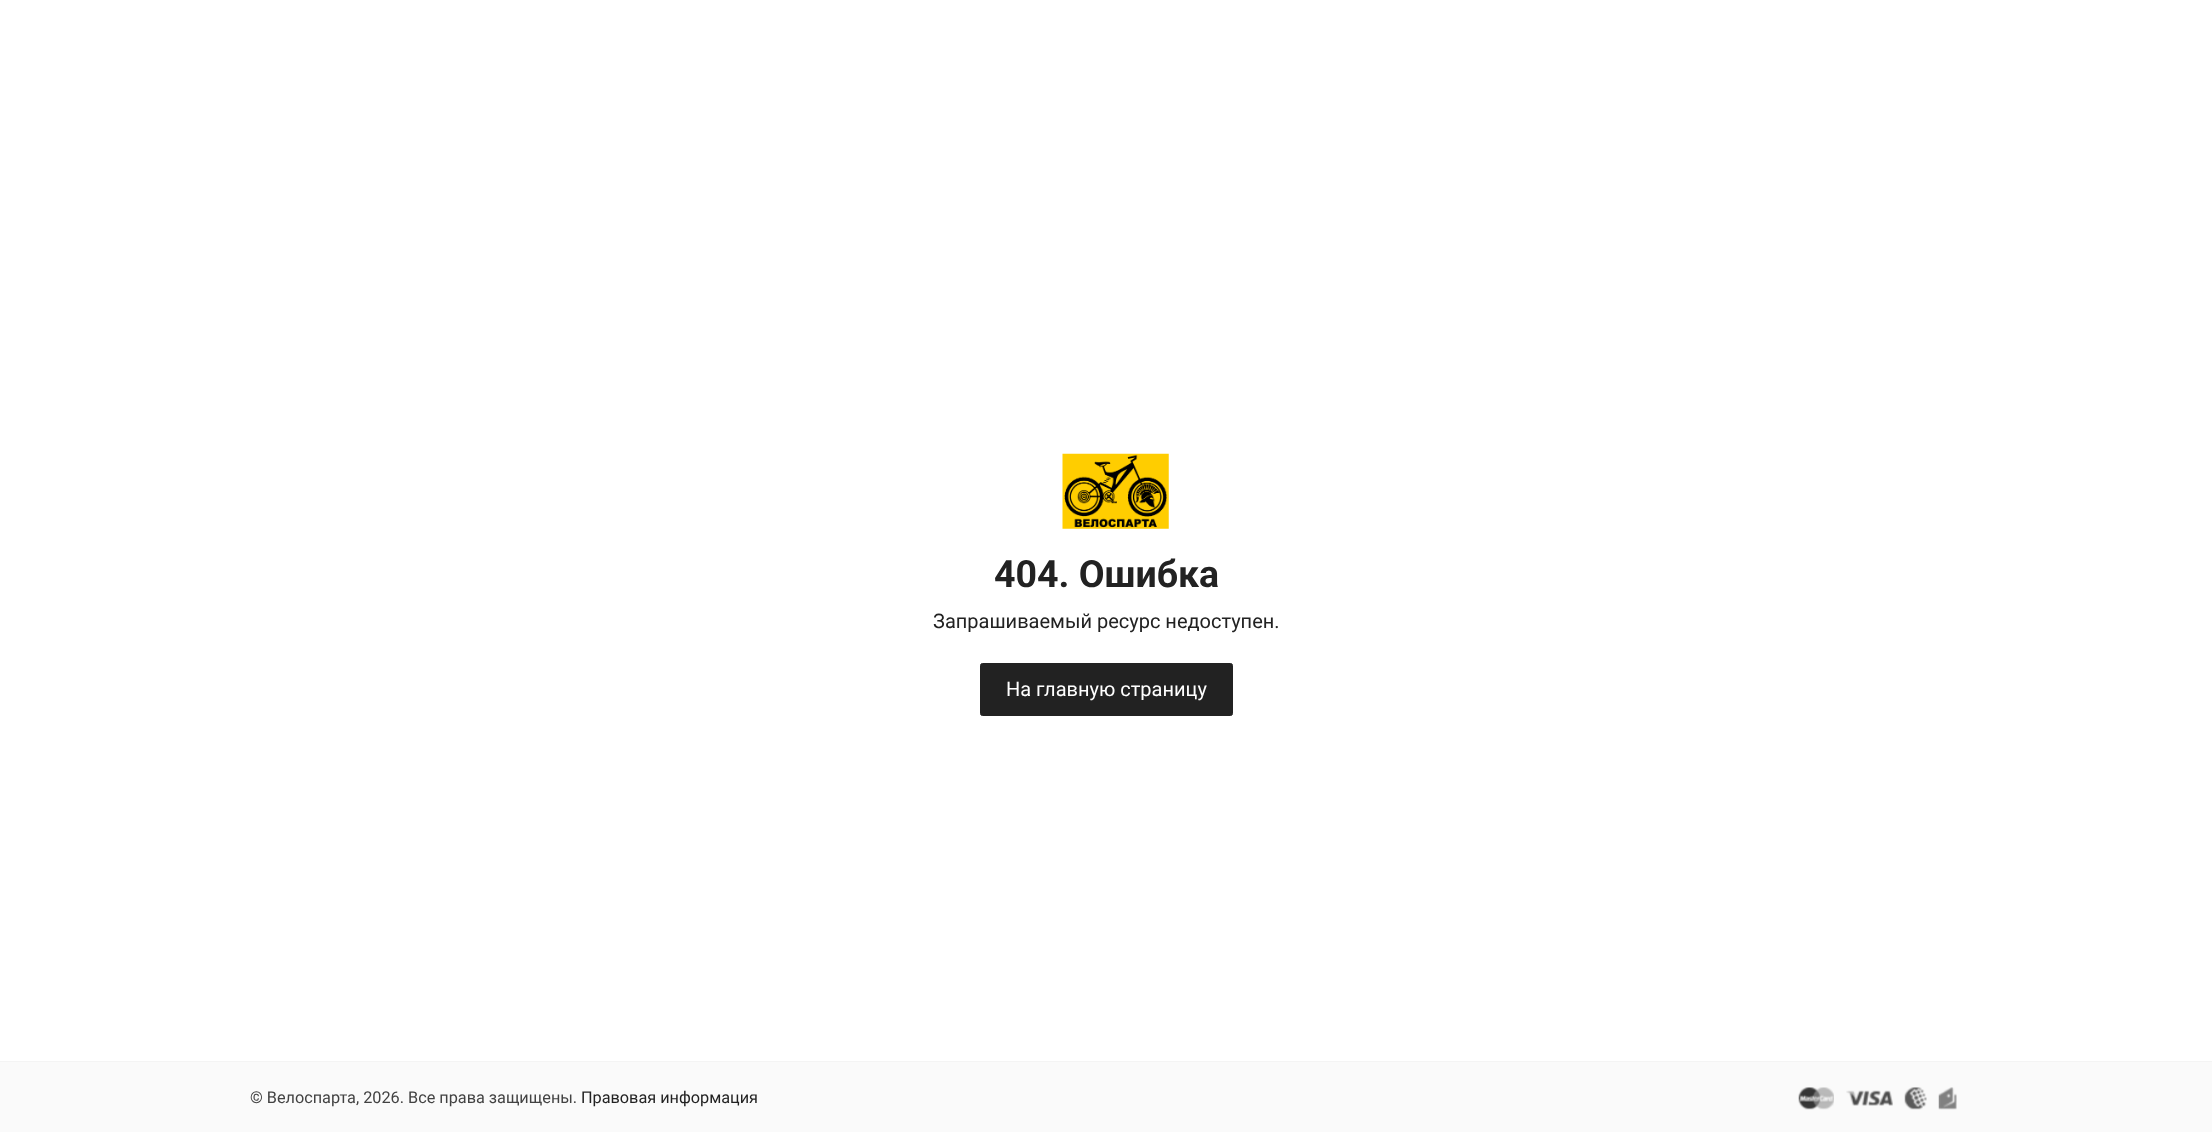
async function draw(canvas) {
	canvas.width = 2212;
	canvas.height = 1132;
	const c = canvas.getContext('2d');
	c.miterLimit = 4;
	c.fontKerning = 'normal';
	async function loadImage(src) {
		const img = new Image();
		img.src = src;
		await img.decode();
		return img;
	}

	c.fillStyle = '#fff';
	c.fillRect(0, 0, 2212, 1132);
	c.drawImage(await loadImage('img1.png'), 1062, 453, 107, 76);
	c.font = 'bold 37.5px Roboto';
	c.fillStyle = '#222';
	c.fillText('404. Ошибка', 994, 587);
	c.font = '20px Roboto';
	c.fillText('Запрашиваемый ресурс недоступен.', 933, 628);
	c.beginPath();
	c.roundRect(980.5, 663.5, 252, 52, 2);
	c.fill();
	c.strokeStyle = '#222';
	c.stroke();
	c.fillStyle = '#fff';
	c.fillText('На главную страницу', 1006, 696);
	c.fillStyle = '#fafafa';
	c.fillRect(0, 1062, 2212, 70);
	c.fillStyle = '#f4f4f4';
	c.fillRect(0, 1061, 2212, 1);
	c.font = '16.25px Roboto';
	c.fillStyle = '#424242';
	c.fillText('© Велоспарта, 2026. Все права защищены.', 250, 1103);
	c.fillStyle = '#222';
	c.fillText('Правовая информация', 581, 1103);
	c.drawImage(await loadImage('img2.png'), 1798, 1087, 36, 23);
	c.drawImage(await loadImage('img3.png'), 1846, 1090, 47, 16);
	c.drawImage(await loadImage('img4.png'), 1904, 1087, 23, 23);
	c.drawImage(await loadImage('img5.png'), 1938, 1087, 19, 23);
}

draw(document.querySelector('canvas'));
